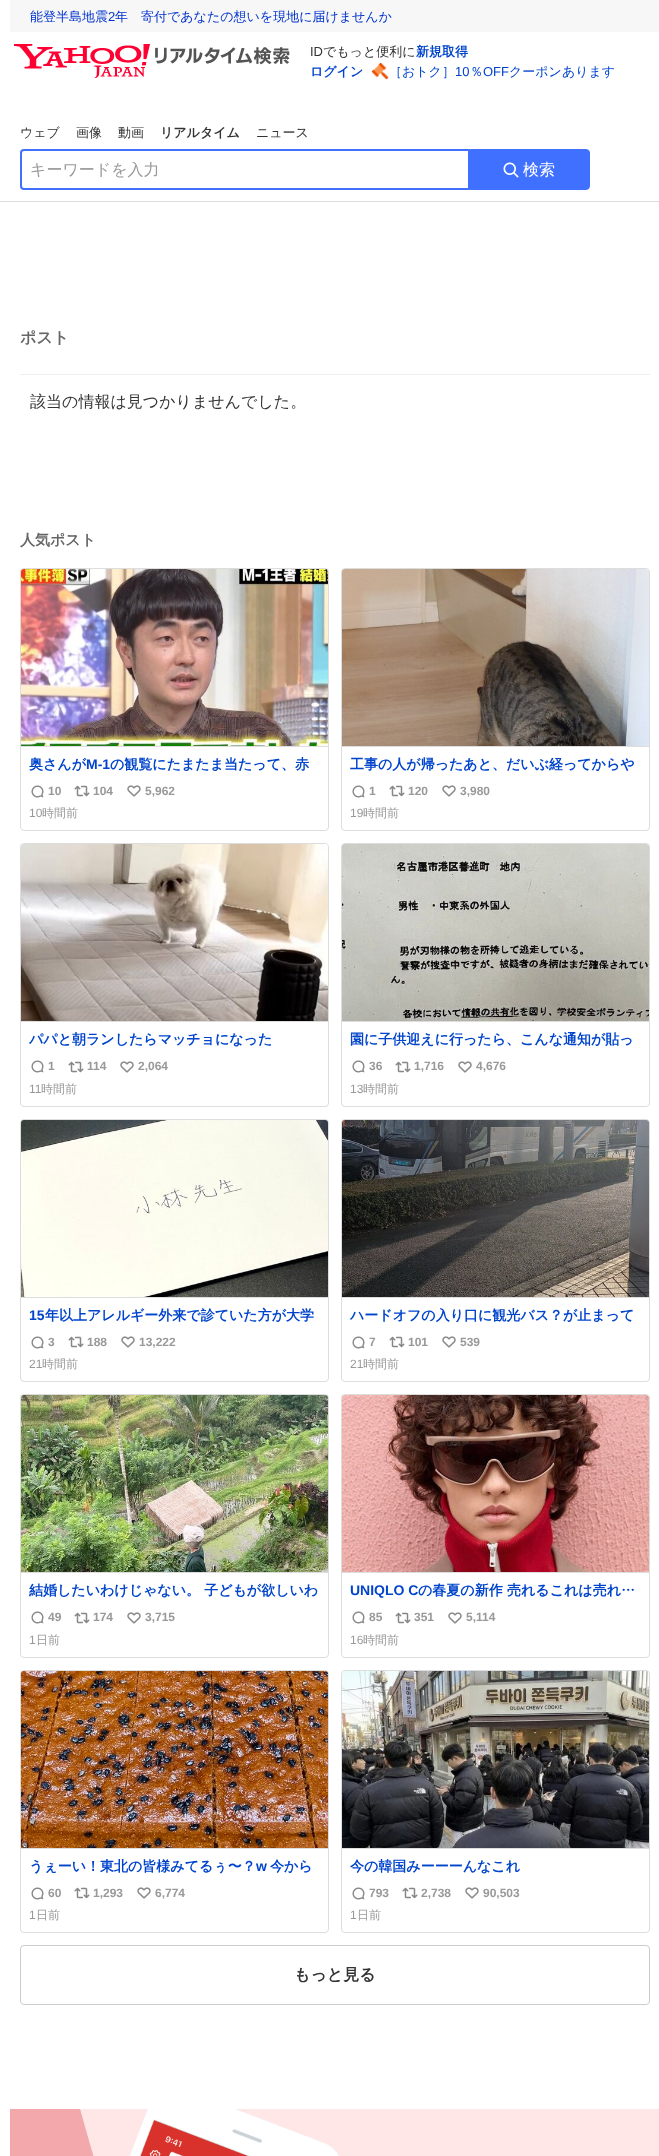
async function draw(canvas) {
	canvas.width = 659;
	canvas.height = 2156;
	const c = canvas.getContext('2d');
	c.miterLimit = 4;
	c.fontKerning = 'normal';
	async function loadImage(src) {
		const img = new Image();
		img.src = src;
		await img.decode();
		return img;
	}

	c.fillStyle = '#fff';
	c.fillRect(0, 0, 659, 2156);
	c.fillStyle = '#f7f7f8';
	c.fillRect(10, 0, 649, 32);
	c.font = '500 13px WenQuanYi Zen Hei';
	c.fillStyle = '#03c';
	c.fillText('能登半島地震', 30, 21);
	c.font = '13px Liberation Sans';
	c.fillText('2', 108, 21);
	c.font = '500 13px WenQuanYi Zen Hei';
	c.fillText('年　寄付であなたの想いを現地に届けませんか', 115, 21);
	c.drawImage(await loadImage('img1.png'), 14, 44, 276, 34);
	c.font = '13px Liberation Sans';
	c.fillStyle = '#333';
	c.fillText('ID', 310, 56);
	c.font = '500 13px WenQuanYi Zen Hei';
	c.fillText('でもっと便利に', 323, 56);
	c.font = 'bold 13px WenQuanYi Zen Hei';
	c.fillStyle = '#04c';
	c.fillText('新規取得', 416, 56);
	c.fillText('ログイン', 310, 76);
	c.drawImage(await loadImage('img2.png'), 371, 62, 18, 18);
	c.font = '500 13px WenQuanYi Zen Hei';
	c.fillText('［おトク］', 389, 76);
	c.font = '13px Liberation Sans';
	c.fillText('10', 455, 76);
	c.font = '500 13px WenQuanYi Zen Hei';
	c.fillText('％', 470, 76);
	c.font = '13px Liberation Sans';
	c.fillText('OFF', 483, 76);
	c.font = '500 13px WenQuanYi Zen Hei';
	c.fillText('クーポンあります', 509, 76);
	c.fillStyle = '#333';
	for (const [text, x, y] of [
		['ウェブ', 20, 137],
		['画像', 76, 137],
		['動画', 118, 137],
	]) {
		c.fillText(text, x, y);
	}
	c.font = 'bold 13px WenQuanYi Zen Hei';
	c.fillText('リアルタイム', 160, 137);
	c.font = '500 13px WenQuanYi Zen Hei';
	c.fillText('ニュース', 256, 137);
	c.beginPath();
	c.roundRect(21, 150, 448, 39, [3, 0, 0, 3]);
	c.strokeStyle = '#4070ff';
	c.lineWidth = 2;
	c.stroke();
	c.font = '500 16px WenQuanYi Zen Hei';
	c.fillStyle = '#999';
	c.fillText('キーワードを入力', 30, 175);
	c.fillStyle = '#4070ff';
	c.beginPath();
	c.roundRect(470.5, 149.5, 119, 40, [0, 3.5, 3.5, 0]);
	c.fill();
	c.lineWidth = 1;
	c.stroke();
	c.drawImage(await loadImage('img3.png'), 503, 162, 16, 16);
	c.fillStyle = '#fff';
	c.fillText('検索', 523, 175);
	c.fillStyle = '#ddd';
	c.fillRect(0, 201, 659, 1);
	c.fillStyle = '#eee';
	c.fillRect(20, 374, 630, 1);
	c.font = 'bold 16px WenQuanYi Zen Hei';
	c.fillStyle = '#666';
	c.fillText('ポスト', 20, 343);
	c.font = '500 16px WenQuanYi Zen Hei';
	c.fillStyle = '#333';
	c.fillText('該当の情報は見つかりませんでした。', 30, 407);
	c.font = 'bold 15px WenQuanYi Zen Hei';
	c.fillStyle = '#666';
	c.fillText('人気ポスト', 20, 545);
	c.beginPath();
	c.roundRect(20.5, 568.5, 308, 262, 3.5);
	c.strokeStyle = '#ddd';
	c.stroke();
	c.drawImage(await loadImage('img4.png'), 21, 569, 307, 177);
	c.fillStyle = '#ddd';
	c.fillRect(21, 746, 307, 1);
	c.font = 'bold 14px WenQuanYi Zen Hei';
	c.fillStyle = '#04c';
	c.fillText('奥さんが', 29, 769);
	c.font = 'bold 14px Liberation Sans';
	c.fillText('M-1', 86, 769);
	c.font = 'bold 14px WenQuanYi Zen Hei';
	c.fillText('の観覧にたまたま当たって、赤', 110, 769);
	c.drawImage(await loadImage('img5.png'), 31, 785, 13, 13);
	c.font = 'bold 12px Liberation Sans';
	c.fillStyle = '#999';
	c.fillText('10', 48, 795);
	c.drawImage(await loadImage('img6.png'), 74, 785, 16, 12);
	c.fillText('104', 93, 795);
	c.drawImage(await loadImage('img7.png'), 127, 785, 14, 12);
	c.fillText('5,962', 145, 795);
	c.font = '12px Liberation Sans';
	c.fillText('10', 29, 817);
	c.font = '500 12px WenQuanYi Zen Hei';
	c.fillText('時間前', 42, 817);
	c.beginPath();
	c.roundRect(341.5, 568.5, 308, 262, 3.5);
	c.stroke();
	c.drawImage(await loadImage('img8.png'), 342, 569, 307, 177);
	c.fillStyle = '#ddd';
	c.fillRect(342, 746, 307, 1);
	c.font = 'bold 14px WenQuanYi Zen Hei';
	c.fillStyle = '#04c';
	c.fillText('工事の人が帰ったあと、だいぶ経ってからや', 350, 769);
	c.drawImage(await loadImage('img5.png'), 352, 785, 13, 13);
	c.font = 'bold 12px Liberation Sans';
	c.fillStyle = '#999';
	c.fillText('1', 369, 795);
	c.drawImage(await loadImage('img6.png'), 389, 785, 16, 12);
	c.fillText('120', 408, 795);
	c.drawImage(await loadImage('img7.png'), 442, 785, 14, 12);
	c.fillText('3,980', 460, 795);
	c.font = '12px Liberation Sans';
	c.fillText('19', 350, 817);
	c.font = '500 12px WenQuanYi Zen Hei';
	c.fillText('時間前', 363, 817);
	c.beginPath();
	c.roundRect(20.5, 843.5, 308, 263, 3.5);
	c.stroke();
	c.drawImage(await loadImage('img9.png'), 21, 844, 307, 177);
	c.fillStyle = '#ddd';
	c.fillRect(21, 1021, 307, 1);
	c.font = 'bold 14px WenQuanYi Zen Hei';
	c.fillStyle = '#04c';
	c.fillText('パパと朝ランしたらマッチョになった', 29, 1044);
	c.drawImage(await loadImage('img5.png'), 31, 1060, 13, 13);
	c.font = 'bold 12px Liberation Sans';
	c.fillStyle = '#999';
	c.fillText('1', 48, 1070);
	c.drawImage(await loadImage('img6.png'), 68, 1061, 16, 12);
	c.fillText('114', 87, 1070);
	c.drawImage(await loadImage('img7.png'), 120, 1061, 14, 12);
	c.fillText('2,064', 138, 1070);
	c.font = '12px Liberation Sans';
	c.fillText('11', 29, 1093);
	c.font = '500 12px WenQuanYi Zen Hei';
	c.fillText('時間前', 41, 1093);
	c.beginPath();
	c.roundRect(341.5, 843.5, 308, 263, 3.5);
	c.stroke();
	c.drawImage(await loadImage('img10.png'), 342, 844, 307, 177);
	c.fillStyle = '#ddd';
	c.fillRect(342, 1021, 307, 1);
	c.font = 'bold 14px WenQuanYi Zen Hei';
	c.fillStyle = '#04c';
	c.fillText('園に子供迎えに行ったら、こんな通知が貼っ', 350, 1044);
	c.drawImage(await loadImage('img5.png'), 352, 1060, 13, 13);
	c.font = 'bold 12px Liberation Sans';
	c.fillStyle = '#999';
	c.fillText('36', 369, 1070);
	c.drawImage(await loadImage('img6.png'), 395, 1061, 16, 12);
	c.fillText('1,716', 414, 1070);
	c.drawImage(await loadImage('img7.png'), 458, 1061, 14, 12);
	c.fillText('4,676', 476, 1070);
	c.font = '12px Liberation Sans';
	c.fillText('13', 350, 1093);
	c.font = '500 12px WenQuanYi Zen Hei';
	c.fillText('時間前', 363, 1093);
	c.beginPath();
	c.roundRect(20.5, 1119.5, 308, 262, 3.5);
	c.stroke();
	c.drawImage(await loadImage('img11.png'), 21, 1120, 307, 177);
	c.fillStyle = '#ddd';
	c.fillRect(21, 1297, 307, 1);
	c.font = 'bold 14px Liberation Sans';
	c.fillStyle = '#04c';
	c.fillText('15', 29, 1320);
	c.font = 'bold 14px WenQuanYi Zen Hei';
	c.fillText('年以上アレルギー外来で診ていた方が大学', 45, 1320);
	c.drawImage(await loadImage('img5.png'), 31, 1336, 13, 13);
	c.font = 'bold 12px Liberation Sans';
	c.fillStyle = '#999';
	c.fillText('3', 48, 1346);
	c.drawImage(await loadImage('img6.png'), 68, 1336, 16, 12);
	c.fillText('188', 87, 1346);
	c.drawImage(await loadImage('img7.png'), 121, 1336, 14, 12);
	c.fillText('13,222', 139, 1346);
	c.font = '12px Liberation Sans';
	c.fillText('21', 29, 1368);
	c.font = '500 12px WenQuanYi Zen Hei';
	c.fillText('時間前', 42, 1368);
	c.beginPath();
	c.roundRect(341.5, 1119.5, 308, 262, 3.5);
	c.stroke();
	c.drawImage(await loadImage('img12.png'), 342, 1120, 307, 177);
	c.fillStyle = '#ddd';
	c.fillRect(342, 1297, 307, 1);
	c.font = 'bold 14px WenQuanYi Zen Hei';
	c.fillStyle = '#04c';
	c.fillText('ハードオフの入り口に観光バス？が止まって', 350, 1320);
	c.drawImage(await loadImage('img5.png'), 352, 1336, 13, 13);
	c.font = 'bold 12px Liberation Sans';
	c.fillStyle = '#999';
	c.fillText('7', 369, 1346);
	c.drawImage(await loadImage('img6.png'), 389, 1336, 16, 12);
	c.fillText('101', 408, 1346);
	c.drawImage(await loadImage('img7.png'), 442, 1336, 14, 12);
	c.fillText('539', 460, 1346);
	c.font = '12px Liberation Sans';
	c.fillText('21', 350, 1368);
	c.font = '500 12px WenQuanYi Zen Hei';
	c.fillText('時間前', 363, 1368);
	c.beginPath();
	c.roundRect(20.5, 1394.5, 308, 263, 3.5);
	c.stroke();
	c.drawImage(await loadImage('img13.png'), 21, 1395, 307, 177);
	c.fillStyle = '#ddd';
	c.fillRect(21, 1572, 307, 1);
	c.font = 'bold 14px WenQuanYi Zen Hei';
	c.fillStyle = '#04c';
	c.fillText('結婚したいわけじゃない。 子どもが欲しいわ', 29, 1595);
	c.drawImage(await loadImage('img5.png'), 31, 1611, 13, 13);
	c.font = 'bold 12px Liberation Sans';
	c.fillStyle = '#999';
	c.fillText('49', 48, 1621);
	c.drawImage(await loadImage('img6.png'), 74, 1612, 16, 12);
	c.fillText('174', 93, 1621);
	c.drawImage(await loadImage('img7.png'), 127, 1612, 14, 12);
	c.fillText('3,715', 145, 1621);
	c.font = '12px Liberation Sans';
	c.fillText('1', 29, 1644);
	c.font = '500 12px WenQuanYi Zen Hei';
	c.fillText('日前', 36, 1644);
	c.beginPath();
	c.roundRect(341.5, 1394.5, 308, 263, 3.5);
	c.stroke();
	c.drawImage(await loadImage('img14.png'), 342, 1395, 307, 177);
	c.fillStyle = '#ddd';
	c.fillRect(342, 1572, 307, 1);
	c.font = 'bold 14px Liberation Sans';
	c.fillStyle = '#04c';
	c.fillText('UNIQLO C', 350, 1595);
	c.font = 'bold 14px WenQuanYi Zen Hei';
	c.fillText('の春夏の新作', 418, 1595);
	c.fillText('売れるこれは売れ…', 507, 1595);
	c.drawImage(await loadImage('img5.png'), 352, 1611, 13, 13);
	c.font = 'bold 12px Liberation Sans';
	c.fillStyle = '#999';
	c.fillText('85', 369, 1621);
	c.drawImage(await loadImage('img6.png'), 395, 1612, 16, 12);
	c.fillText('351', 414, 1621);
	c.drawImage(await loadImage('img7.png'), 448, 1612, 14, 12);
	c.fillText('5,114', 466, 1621);
	c.font = '12px Liberation Sans';
	c.fillText('16', 350, 1644);
	c.font = '500 12px WenQuanYi Zen Hei';
	c.fillText('時間前', 363, 1644);
	c.beginPath();
	c.roundRect(20.5, 1670.5, 308, 262, 3.5);
	c.stroke();
	c.drawImage(await loadImage('img15.png'), 21, 1671, 307, 177);
	c.fillStyle = '#ddd';
	c.fillRect(21, 1848, 307, 1);
	c.font = 'bold 14px WenQuanYi Zen Hei';
	c.fillStyle = '#04c';
	c.fillText('うぇーい！東北の皆様みてるぅ〜？', 29, 1871);
	c.font = 'bold 14px Liberation Sans';
	c.fillText('w', 256, 1871);
	c.font = 'bold 14px WenQuanYi Zen Hei';
	c.fillText('今から', 270, 1871);
	c.drawImage(await loadImage('img5.png'), 31, 1887, 13, 13);
	c.font = 'bold 12px Liberation Sans';
	c.fillStyle = '#999';
	c.fillText('60', 48, 1897);
	c.drawImage(await loadImage('img6.png'), 74, 1887, 16, 12);
	c.fillText('1,293', 93, 1897);
	c.drawImage(await loadImage('img7.png'), 137, 1887, 14, 12);
	c.fillText('6,774', 155, 1897);
	c.font = '12px Liberation Sans';
	c.fillText('1', 29, 1919);
	c.font = '500 12px WenQuanYi Zen Hei';
	c.fillText('日前', 36, 1919);
	c.beginPath();
	c.roundRect(341.5, 1670.5, 308, 262, 3.5);
	c.stroke();
	c.drawImage(await loadImage('img16.png'), 342, 1671, 307, 177);
	c.fillStyle = '#ddd';
	c.fillRect(342, 1848, 307, 1);
	c.font = 'bold 14px WenQuanYi Zen Hei';
	c.fillStyle = '#04c';
	c.fillText('今の韓国みーーーんなこれ', 350, 1871);
	c.drawImage(await loadImage('img5.png'), 352, 1887, 13, 13);
	c.font = 'bold 12px Liberation Sans';
	c.fillStyle = '#999';
	c.fillText('793', 369, 1897);
	c.drawImage(await loadImage('img6.png'), 402, 1887, 16, 12);
	c.fillText('2,738', 421, 1897);
	c.drawImage(await loadImage('img7.png'), 465, 1887, 14, 12);
	c.fillText('90,503', 483, 1897);
	c.font = '12px Liberation Sans';
	c.fillText('1', 350, 1919);
	c.font = '500 12px WenQuanYi Zen Hei';
	c.fillText('日前', 357, 1919);
	c.beginPath();
	c.roundRect(20.5, 1945.5, 629, 59, 3.5);
	c.strokeStyle = '#ccc';
	c.stroke();
	c.font = 'bold 16px WenQuanYi Zen Hei';
	c.fillStyle = '#333';
	c.fillText('もっと見る', 294, 1980);
	c.drawImage(await loadImage('img17.png'), 10, 2109, 649, 47);
}

draw(document.querySelector('canvas'));
